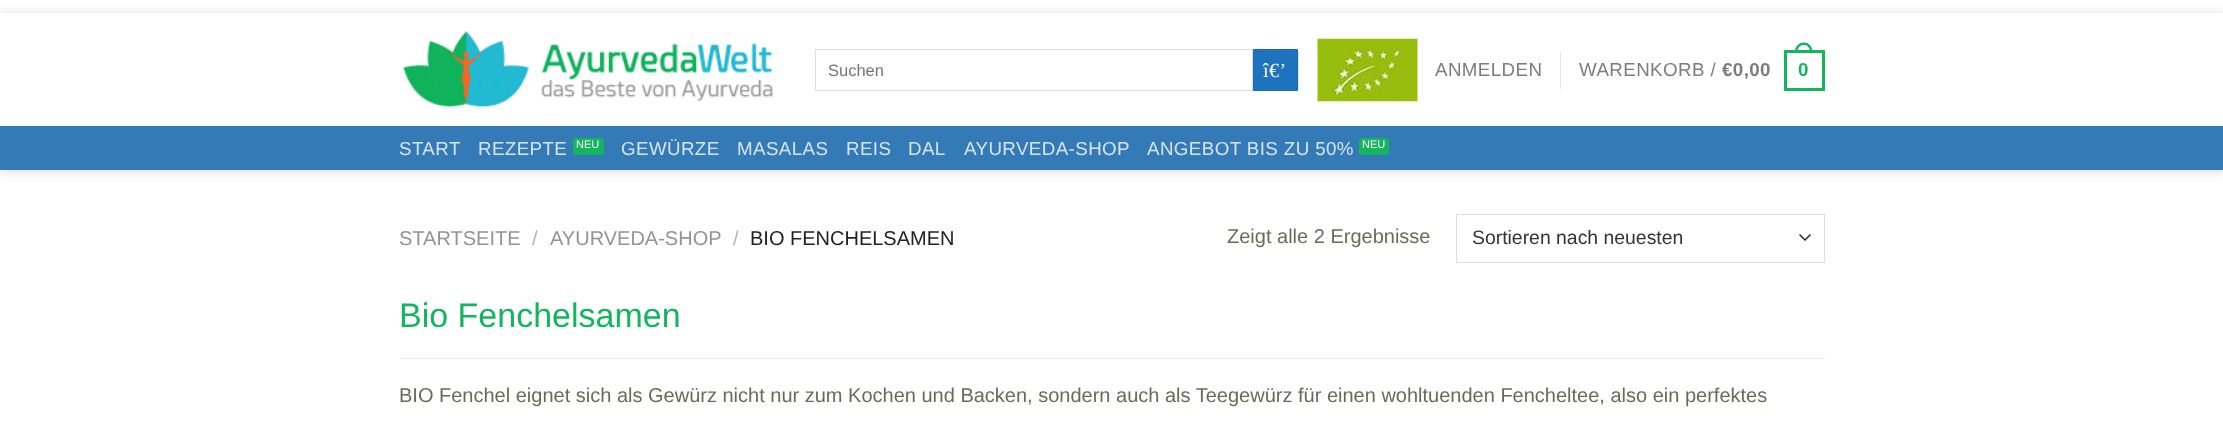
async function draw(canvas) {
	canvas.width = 2223;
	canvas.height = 422;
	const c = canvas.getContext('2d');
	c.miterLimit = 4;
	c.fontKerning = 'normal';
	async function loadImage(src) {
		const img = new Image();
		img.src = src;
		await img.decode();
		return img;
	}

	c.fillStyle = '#fff';
	c.fillRect(0, 0, 2223, 422);
	c.save();
	c.beginPath();
	c.moveTo(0, 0);
	c.lineTo(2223, 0);
	c.lineTo(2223, 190);
	c.lineTo(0, 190);
	c.closePath();
	c.moveTo(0, 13);
	c.lineTo(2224, 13);
	c.lineTo(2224, 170);
	c.lineTo(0, 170);
	c.closePath();
	c.clip('evenodd');
	c.fillStyle = '#00000026';
	c.filter = 'blur(6px)';
	c.beginPath();
	c.rect(1, 14, 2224, 157);
	c.fill();
	c.filter = 'none';
	c.restore();
	c.drawImage(await loadImage('img1.png'), 402, 31, 371, 76);
	c.strokeStyle = '#ddd';
	c.strokeRect(815.5, 49.5, 437, 41);
	c.font = '16.5px Liberation Sans';
	c.fillStyle = '#757575';
	c.fillText('Suchen', 828, 76);
	c.fillStyle = '#1e73be';
	c.beginPath();
	c.rect(1253.5, 49.5, 44, 41);
	c.fill();
	c.strokeStyle = '#1d6db5';
	c.stroke();
	c.letterSpacing = '0.5px';
	c.font = '20px Liberation Serif';
	c.fillStyle = '#fff';
	c.fillText('î€’', 1263, 77);
	c.fillStyle = '#e6e6e6';
	c.fillRect(1298, 51, 1, 38);
	c.drawImage(await loadImage('img2.png'), 1317, 38, 101, 64);
	c.letterSpacing = '0.4px';
	c.font = '18.75px Liberation Sans';
	c.fillStyle = '#7d7d7d';
	c.fillText('ANMELDEN', 1435, 76);
	c.fillStyle = '#e6e6e6';
	c.fillRect(1560, 51, 1, 38);
	c.fillStyle = '#7d7d7d';
	c.fillText('WARENKORB /', 1579, 76);
	c.font = 'bold 18.75px Liberation Sans';
	c.fillText('€0,00', 1722, 76);
	c.strokeStyle = '#15b560';
	c.lineWidth = 3;
	c.strokeRect(1785.5, 51.5, 38, 38);
	c.fillStyle = '#15b560';
	c.beginPath();
	c.moveTo(1804, 42.5);
	c.bezierCurveTo(1809.5, 42.5, 1812.5, 47, 1812.5, 52.5);
	c.lineTo(1795, 52.5);
	c.bezierCurveTo(1795, 47, 1798, 42.5, 1804, 42.5);
	c.closePath();
	c.moveTo(1804, 45);
	c.bezierCurveTo(1808, 45, 1810, 48.5, 1810, 52.5);
	c.lineTo(1797.5, 52.5);
	c.bezierCurveTo(1797.5, 48.5, 1799.5, 45, 1804, 45);
	c.closePath();
	c.fill('evenodd');
	c.fillText('0', 1798, 76);
	c.fillStyle = '#337ab7';
	c.fillRect(0, 126, 2223, 44);
	c.fillStyle = '#3879ad';
	c.fillRect(400, 126, 1425, 1);
	c.font = '18.75px Liberation Sans';
	c.fillStyle = '#d6e4f1';
	c.fillText('START', 399, 155);
	c.fillText('REZEPTE', 478, 155);
	c.fillStyle = '#15b560';
	c.beginPath();
	c.roundRect(573, 138, 31, 17, 2.5);
	c.fill();
	c.letterSpacing = '0px';
	c.font = '11px Liberation Sans';
	c.fillStyle = '#fff';
	c.fillText('NEU', 576, 148);
	c.letterSpacing = '0.4px';
	c.font = '18.75px Liberation Sans';
	c.fillStyle = '#d6e4f1';
	for (const [text, x, y] of [
		['GEWÜRZE', 621, 155],
		['MASALAS', 737, 155],
		['REIS', 846, 155],
		['DAL', 908, 155],
		['AYURVEDA-SHOP', 964, 155],
		['ANGEBOT BIS ZU 50%', 1147, 155],
	]) {
		c.fillText(text, x, y);
	}
	c.fillStyle = '#15b560';
	c.beginPath();
	c.roundRect(1359, 138, 30, 17, 2.5);
	c.fill();
	c.letterSpacing = '0px';
	c.font = '11px Liberation Sans';
	c.fillStyle = '#fff';
	c.fillText('NEU', 1362, 148);
	c.font = '20px Liberation Sans';
	c.fillStyle = '#949494';
	c.fillText('STARTSEITE', 399, 245);
	c.fillStyle = '#b2b2b2';
	c.fillText('/', 532, 245);
	c.fillStyle = '#949494';
	c.fillText('AYURVEDA-SHOP', 550, 245);
	c.fillStyle = '#b2b2b2';
	c.fillText('/', 733, 245);
	c.fillStyle = '#222';
	c.fillText('BIO FENCHELSAMEN', 750, 245);
	c.fillStyle = '#686c56';
	c.fillText('Zeigt alle 2 Ergebnisse', 1227, 243);
	c.beginPath();
	c.moveTo(1800, 235);
	c.lineTo(1805, 240);
	c.lineTo(1810, 235);
	c.strokeStyle = '#333';
	c.lineWidth = 1.7;
	c.lineCap = 'round';
	c.lineJoin = 'round';
	c.stroke();
	c.strokeStyle = '#ddd';
	c.lineWidth = 1;
	c.lineJoin = 'miter';
	c.strokeRect(1456.5, 214.5, 368, 48);
	c.font = '19.4px Liberation Sans';
	c.fillStyle = '#333';
	c.fillText('Sortieren nach neuesten', 1472, 244);
	c.font = '34px Liberation Sans';
	c.fillStyle = '#15b560';
	c.fillText('Bio Fenchelsamen', 399, 327);
	c.fillStyle = '#e9e9e9';
	c.fillRect(400, 358, 1425, 1);
	c.font = '20px Liberation Sans';
	c.fillStyle = '#686c56';
	c.fillText('BIO Fenchel eignet sich als Gewürz nicht nur zum Kochen und Backen, sondern auch als Teegewürz für einen wohltuenden Fencheltee, also ein perfektes', 399, 402);
}

draw(document.querySelector('canvas'));
